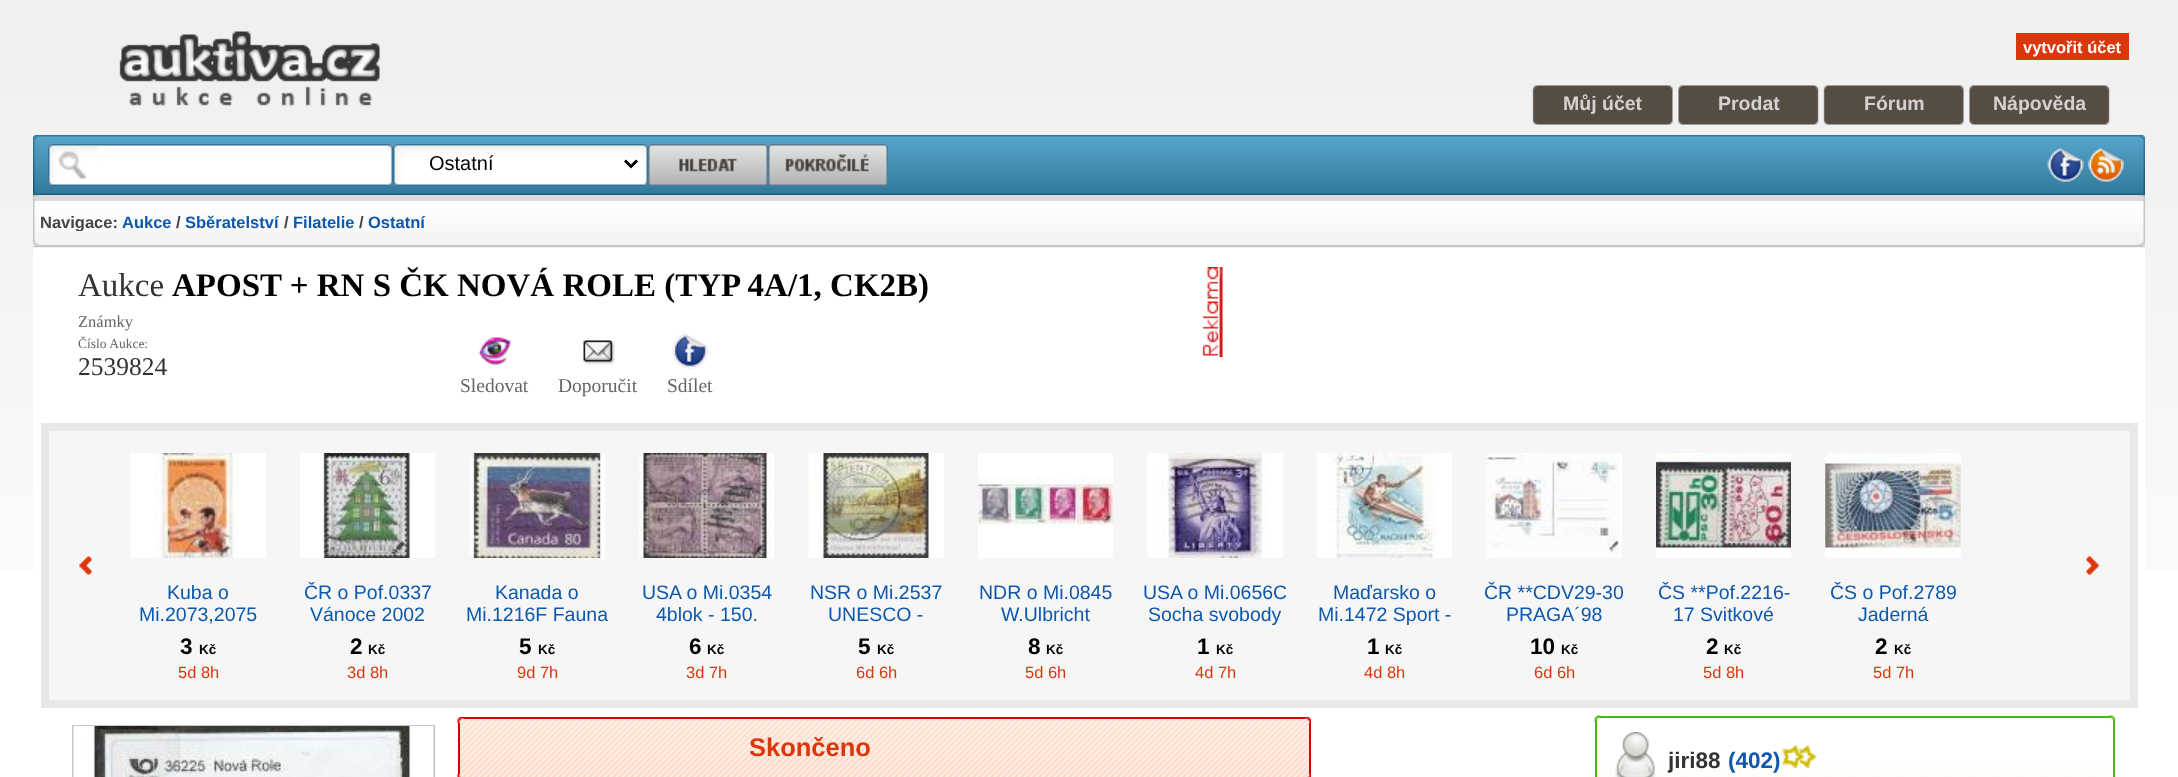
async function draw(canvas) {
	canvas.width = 2178;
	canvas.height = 777;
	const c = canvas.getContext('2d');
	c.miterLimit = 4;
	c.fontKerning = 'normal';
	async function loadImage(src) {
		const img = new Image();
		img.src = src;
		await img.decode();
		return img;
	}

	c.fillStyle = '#fff';
	c.fillRect(0, 0, 2178, 777);
	c.drawImage(await loadImage('img1.png'), 0, 0, 2178, 570);
	c.drawImage(await loadImage('img2.png'), 119, 31, 261, 75);
	c.fillStyle = '#da370c';
	c.fillRect(2016, 33, 113, 27);
	c.font = 'bold 16.5px Liberation Sans';
	c.fillStyle = '#fff';
	c.fillText('vytvořit účet', 2023, 53);
	c.drawImage(await loadImage('img3.png'), 1532, 85, 141, 40);
	c.font = 'bold 19.5px Liberation Sans';
	c.fillStyle = '#d4d2d0';
	c.fillText('Můj účet', 1563, 110);
	c.drawImage(await loadImage('img4.png'), 1678, 85, 141, 40);
	c.fillText('Prodat', 1718, 110);
	c.drawImage(await loadImage('img3.png'), 1823, 85, 141, 40);
	c.fillText('Fórum', 1864, 110);
	c.drawImage(await loadImage('img4.png'), 1969, 85, 141, 40);
	c.fillText('Nápověda', 1993, 110);
	c.fillStyle = '#dbdbdb';
	c.fillRect(33, 195, 2112, 6);
	c.fillStyle = '#c5c5c5';
	c.fillRect(33, 245, 2112, 2);
	c.drawImage(await loadImage('img5.png'), 33, 135, 6, 111);
	c.fillStyle = '#317a9d';
	c.fillRect(39, 135, 2100, 1);
	c.drawImage(await loadImage('img6.png'), 39, 136, 2100, 59);
	c.drawImage(await loadImage('img7.png'), 48, 144, 345, 42);
	c.fillStyle = '#fff';
	c.fillRect(98, 146, 289, 8);
	c.drawImage(await loadImage('img8.png'), 393, 144, 255, 42);
	c.beginPath();
	c.moveTo(625, 160.5);
	c.lineTo(631, 166.5);
	c.lineTo(637, 160.5);
	c.strokeStyle = '#000';
	c.lineWidth = 3;
	c.stroke();
	c.font = '20px Liberation Sans';
	c.fillStyle = '#000';
	c.fillText('Ostatní', 429, 170);
	c.drawImage(await loadImage('img9.png'), 648, 144, 120, 42);
	c.drawImage(await loadImage('img10.png'), 768, 144, 120, 42);
	c.drawImage(await loadImage('img11.png'), 2047, 147, 37, 36);
	c.drawImage(await loadImage('img12.png'), 2088, 147, 36, 36);
	c.drawImage(await loadImage('img13.png'), 2139, 135, 6, 111);
	c.drawImage(await loadImage('img14.png'), 39, 201, 2100, 31);
	c.save();
	c.beginPath();
	c.rect(41, 213, 1887, 18);
	c.clip();
	c.font = 'bold 16.5px Liberation Sans';
	c.fillStyle = '#444';
	c.fillText('Navigace:', 40, 228);
	c.restore();
	c.font = 'bold 16.5px Liberation Sans';
	c.fillStyle = '#0d58ac';
	c.fillText('Aukce', 122, 228);
	c.fillStyle = '#444';
	c.fillText('/', 176, 228);
	c.fillStyle = '#0d58ac';
	c.fillText('Sběratelství', 185, 228);
	c.fillStyle = '#444';
	c.fillText('/', 284, 228);
	c.fillStyle = '#0d58ac';
	c.fillText('Filatelie', 293, 228);
	c.fillStyle = '#444';
	c.fillText('/', 359, 228);
	c.fillStyle = '#0d58ac';
	c.fillText('Ostatní', 368, 228);
	c.fillStyle = '#fff';
	c.fillRect(33, 248, 2112, 322);
	c.font = '33px Liberation Serif';
	c.fillStyle = '#333';
	c.fillText('Aukce', 78, 296);
	c.font = 'bold 33px Liberation Serif';
	c.fillStyle = '#000';
	c.fillText('APOST + RN S ČK NOVÁ ROLE (TYP 4A/1, CK2B)', 172, 296);
	c.font = '16.5px Liberation Serif';
	c.fillStyle = '#666';
	c.fillText('Známky', 78, 327);
	c.font = '13.5px Liberation Serif';
	c.fillText('Číslo Aukce:', 78, 348);
	c.font = '25.5px Liberation Serif';
	c.fillStyle = '#333';
	c.fillText('2539824', 78, 375);
	c.drawImage(await loadImage('img15.png'), 478, 337, 34, 28);
	c.font = '19.5px Liberation Serif';
	c.fillStyle = '#666';
	c.fillText('Sledovat', 460, 392);
	c.drawImage(await loadImage('img16.png'), 583, 340, 32, 25);
	c.fillText('Doporučit', 558, 392);
	c.drawImage(await loadImage('img17.png'), 672, 333, 36, 36);
	c.fillText('Sdílet', 667, 392);
	c.drawImage(await loadImage('img18.png'), 1202, 267, 21, 90);
	c.fillStyle = '#f6f6f6';
	c.beginPath();
	c.rect(45, 427, 2089, 277);
	c.fill();
	c.strokeStyle = '#e8e8e8';
	c.lineWidth = 8;
	c.stroke();
	c.drawImage(await loadImage('img19.png'), 79, 556, 13, 19);
	c.drawImage(await loadImage('img20.png'), 2086, 556, 13, 19);
	c.drawImage(await loadImage('img21.png'), 130, 453, 109, 105);
	c.fillStyle = '#fff';
	c.fillRect(239, 453, 27, 105);
	c.font = '19.5px Liberation Sans';
	c.fillStyle = '#0d58ac';
	c.fillText('Kuba o', 167, 599);
	c.fillText('Mi.2073,2075', 139, 621);
	c.font = 'bold 22.5px Liberation Sans';
	c.fillStyle = '#000';
	c.fillText('3', 180, 654);
	c.font = 'bold 13.5px Liberation Sans';
	c.fillText('Kč', 199, 654);
	c.font = '16.5px Liberation Sans';
	c.fillStyle = '#da370c';
	c.fillText('5d 8h', 178, 678);
	c.fillStyle = '#fff';
	c.fillRect(300, 453, 135, 105);
	c.drawImage(await loadImage('img22.png'), 323, 453, 87, 105);
	c.font = '19.5px Liberation Sans';
	c.fillStyle = '#0d58ac';
	c.fillText('ČR o Pof.0337', 304, 599);
	c.fillText('Vánoce 2002', 310, 621);
	c.font = 'bold 22.5px Liberation Sans';
	c.fillStyle = '#000';
	c.fillText('2', 350, 654);
	c.font = 'bold 13.5px Liberation Sans';
	c.fillText('Kč', 368, 654);
	c.font = '16.5px Liberation Sans';
	c.fillStyle = '#da370c';
	c.fillText('3d 8h', 347, 678);
	c.drawImage(await loadImage('img23.png'), 469, 453, 133, 105);
	c.fillStyle = '#fff';
	c.fillRect(602, 453, 3, 105);
	c.font = '19.5px Liberation Sans';
	c.fillStyle = '#0d58ac';
	c.fillText('Kanada o', 495, 599);
	c.fillText('Mi.1216F Fauna', 466, 621);
	c.font = 'bold 22.5px Liberation Sans';
	c.fillStyle = '#000';
	c.fillText('5', 519, 654);
	c.font = 'bold 13.5px Liberation Sans';
	c.fillText('Kč', 538, 654);
	c.font = '16.5px Liberation Sans';
	c.fillStyle = '#da370c';
	c.fillText('9d 7h', 517, 678);
	c.drawImage(await loadImage('img24.png'), 639, 453, 132, 105);
	c.fillStyle = '#fff';
	c.fillRect(771, 453, 3, 105);
	c.font = '19.5px Liberation Sans';
	c.fillStyle = '#0d58ac';
	c.fillText('USA o Mi.0354', 642, 599);
	c.fillText('4blok - 150.', 656, 621);
	c.font = 'bold 22.5px Liberation Sans';
	c.fillStyle = '#000';
	c.fillText('6', 689, 654);
	c.font = 'bold 13.5px Liberation Sans';
	c.fillText('Kč', 707, 654);
	c.font = '16.5px Liberation Sans';
	c.fillStyle = '#da370c';
	c.fillText('3d 7h', 686, 678);
	c.drawImage(await loadImage('img25.png'), 808, 453, 122, 105);
	c.fillStyle = '#fff';
	c.fillRect(930, 453, 14, 105);
	c.font = '19.5px Liberation Sans';
	c.fillStyle = '#0d58ac';
	c.fillText('NSR o Mi.2537', 810, 599);
	c.fillText('UNESCO -', 828, 621);
	c.font = 'bold 22.5px Liberation Sans';
	c.fillStyle = '#000';
	c.fillText('5', 858, 654);
	c.font = 'bold 13.5px Liberation Sans';
	c.fillText('Kč', 877, 654);
	c.font = '16.5px Liberation Sans';
	c.fillStyle = '#da370c';
	c.fillText('6d 6h', 856, 678);
	c.fillStyle = '#fff';
	c.fillRect(978, 453, 135, 105);
	c.drawImage(await loadImage('img26.png'), 978, 476, 135, 50);
	c.font = '19.5px Liberation Sans';
	c.fillStyle = '#0d58ac';
	c.fillText('NDR o Mi.0845', 979, 599);
	c.fillText('W.Ulbricht', 1001, 621);
	c.font = 'bold 22.5px Liberation Sans';
	c.fillStyle = '#000';
	c.fillText('8', 1028, 654);
	c.font = 'bold 13.5px Liberation Sans';
	c.fillText('Kč', 1046, 654);
	c.font = '16.5px Liberation Sans';
	c.fillStyle = '#da370c';
	c.fillText('5d 6h', 1025, 678);
	c.drawImage(await loadImage('img27.png'), 1147, 453, 121, 105);
	c.fillStyle = '#fff';
	c.fillRect(1268, 453, 15, 105);
	c.font = '19.5px Liberation Sans';
	c.fillStyle = '#0d58ac';
	c.fillText('USA o Mi.0656C', 1143, 599);
	c.fillText('Socha svobody', 1148, 621);
	c.font = 'bold 22.5px Liberation Sans';
	c.fillStyle = '#000';
	c.fillText('1', 1197, 654);
	c.font = 'bold 13.5px Liberation Sans';
	c.fillText('Kč', 1216, 654);
	c.font = '16.5px Liberation Sans';
	c.fillStyle = '#da370c';
	c.fillText('4d 7h', 1195, 678);
	c.fillStyle = '#fff';
	c.fillRect(1317, 453, 135, 105);
	c.drawImage(await loadImage('img28.png'), 1329, 453, 108, 105);
	c.font = '19.5px Liberation Sans';
	c.fillStyle = '#0d58ac';
	c.fillText('Maďarsko o', 1333, 599);
	c.fillText('Mi.1472 Sport -', 1318, 621);
	c.font = 'bold 22.5px Liberation Sans';
	c.fillStyle = '#000';
	c.fillText('1', 1367, 654);
	c.font = 'bold 13.5px Liberation Sans';
	c.fillText('Kč', 1385, 654);
	c.font = '16.5px Liberation Sans';
	c.fillStyle = '#da370c';
	c.fillText('4d 8h', 1364, 678);
	c.drawImage(await loadImage('img29.png'), 1486, 453, 133, 105);
	c.fillStyle = '#fff';
	c.fillRect(1619, 453, 3, 105);
	c.font = '19.5px Liberation Sans';
	c.fillStyle = '#0d58ac';
	c.fillText('ČR **CDV29-30', 1484, 599);
	c.fillText('PRAGA´98', 1506, 621);
	c.font = 'bold 22.5px Liberation Sans';
	c.fillStyle = '#000';
	c.fillText('10', 1530, 654);
	c.font = 'bold 13.5px Liberation Sans';
	c.fillText('Kč', 1561, 654);
	c.font = '16.5px Liberation Sans';
	c.fillStyle = '#da370c';
	c.fillText('6d 6h', 1534, 678);
	c.drawImage(await loadImage('img30.png'), 1656, 453, 135, 97);
	c.fillStyle = '#fff';
	c.fillRect(1656, 550, 135, 8);
	c.font = '19.5px Liberation Sans';
	c.fillStyle = '#0d58ac';
	c.fillText('ČS **Pof.2216-', 1658, 599);
	c.fillText('17 Svitkové', 1673, 621);
	c.font = 'bold 22.5px Liberation Sans';
	c.fillStyle = '#000';
	c.fillText('2', 1706, 654);
	c.font = 'bold 13.5px Liberation Sans';
	c.fillText('Kč', 1724, 654);
	c.font = '16.5px Liberation Sans';
	c.fillStyle = '#da370c';
	c.fillText('5d 8h', 1703, 678);
	c.fillStyle = '#fff';
	c.fillRect(1960, 453, 1, 105);
	c.drawImage(await loadImage('img31.png'), 1825, 453, 136, 105);
	c.drawImage(await loadImage('img32.png'), 1825, 463, 136, 85);
	c.font = '19.5px Liberation Sans';
	c.fillStyle = '#0d58ac';
	c.fillText('ČS o Pof.2789', 1830, 599);
	c.fillText('Jaderná', 1858, 621);
	c.font = 'bold 22.5px Liberation Sans';
	c.fillStyle = '#000';
	c.fillText('2', 1875, 654);
	c.font = 'bold 13.5px Liberation Sans';
	c.fillText('Kč', 1894, 654);
	c.font = '16.5px Liberation Sans';
	c.fillStyle = '#da370c';
	c.fillText('5d 7h', 1873, 678);
	c.strokeStyle = '#c5c5c5';
	c.lineWidth = 2;
	c.strokeRect(73, 726, 361, 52);
	c.drawImage(await loadImage('img33.png'), 73, 726, 361, 51);
	c.drawImage(await loadImage('img36.png'), 457, 717, 852, 60);
	c.strokeStyle = '#d90303';
	c.strokeRect(459, 718, 851, 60);
	c.drawImage(await loadImage('img34.png'), 457, 717, 7, 6);
	c.drawImage(await loadImage('img35.png'), 1305, 717, 6, 6);
	c.font = 'bold 25.5px Liberation Sans';
	c.fillText('Skončeno', 749, 756);
	c.drawImage(await loadImage('img37.png'), 457, 774, 5, 3);
	c.drawImage(await loadImage('img38.png'), 1306, 774, 4, 3);
	c.drawImage(await loadImage('img41.png'), 1594, 765, 519, 12);
	c.strokeStyle = '#4bb704';
	c.strokeRect(1596, 717, 518, 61);
	c.drawImage(await loadImage('img39.png'), 1594, 715, 7, 7);
	c.drawImage(await loadImage('img40.png'), 2109, 715, 6, 7);
	c.drawImage(await loadImage('img42.png'), 1615, 732, 41, 45);
	c.font = 'bold 22.5px Liberation Sans';
	c.fillStyle = '#333';
	c.fillText('jiri88', 1668, 768);
	c.fillStyle = '#0d58ac';
	c.fillText('(402)', 1728, 768);
	c.drawImage(await loadImage('img43.png'), 1781, 745, 36, 23);
}

draw(document.querySelector('canvas'));
